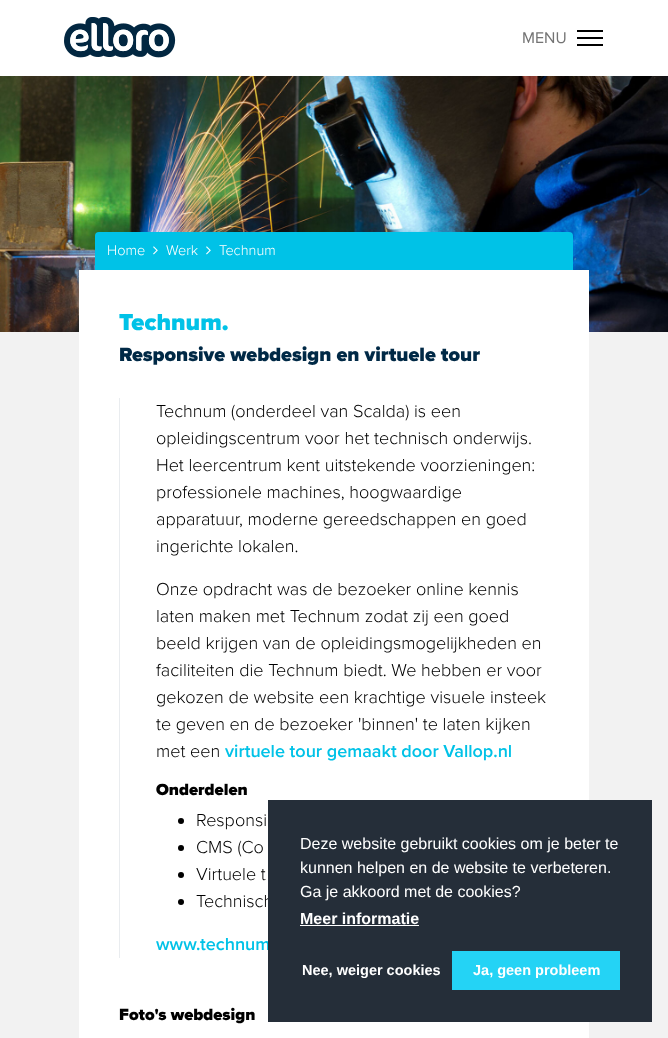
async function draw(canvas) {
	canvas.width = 668;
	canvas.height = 1038;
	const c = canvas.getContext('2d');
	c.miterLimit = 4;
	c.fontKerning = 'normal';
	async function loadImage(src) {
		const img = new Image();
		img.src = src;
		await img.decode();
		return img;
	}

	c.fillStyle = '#f2f2f2';
	c.fillRect(0, 0, 668, 1038);
	c.fillStyle = '#fff';
	c.fillRect(0, 0, 668, 76);
	c.drawImage(await loadImage('img1.png'), 64, 17, 112, 41);
	c.font = '16px Proxima Nova';
	c.fillStyle = '#737373';
	c.fillText('MENU', 522, 43);
	for (const [x, y, w, h, color] of [
		[577, 37, 26, 2, '#000'],
		[577, 30, 26, 2, '#000'],
		[577, 44, 26, 2, '#000'],
	]) {
		c.fillStyle = color;
		c.fillRect(x, y, w, h);
	}
	c.drawImage(await loadImage('img2.png'), 0, 76, 668, 256);
	c.fillStyle = '#00c2e7';
	c.beginPath();
	c.roundRect(95, 232, 478, 38, [4, 4, 0, 0]);
	c.fill();
	c.font = '300 14.5px Proxima Nova';
	c.fillStyle = '#fff';
	c.fillText('Home', 107, 255);
	c.drawImage(await loadImage('img3.png'), 153, 246, 5, 9);
	c.fillText('Werk', 166, 255);
	c.drawImage(await loadImage('img3.png'), 206, 246, 5, 9);
	c.fillText('Technum', 219, 255);
	c.fillRect(79, 270, 510, 768);
	c.font = '900 24px Proxima Nova';
	c.fillStyle = '#00c2e7';
	c.fillText('Technum.', 119, 330);
	c.font = '900 20px Proxima Nova';
	c.fillStyle = '#002946';
	c.fillText('Responsive webdesign en virtuele tour', 119, 361);
	c.fillStyle = '#e9ecef';
	c.fillRect(119, 398, 1, 560);
	c.font = '300 18px Proxima Nova';
	c.fillStyle = '#000';
	for (const [text, x, y] of [
		['Technum (onderdeel van Scalda) is een', 156, 417],
		['opleidingscentrum voor het technisch onderwijs.', 156, 444],
		['Het leercentrum kent uitstekende voorzieningen:', 156, 471],
		['professionele machines, hoogwaardige', 156, 498],
		['apparatuur, moderne gereedschappen en goed', 156, 525],
		['ingerichte lokalen.', 156, 552],
		['Onze opdracht was de bezoeker online kennis', 156, 595],
		['laten maken met Technum zodat zij een goed', 156, 622],
		['beeld krijgen van de opleidingsmogelijkheden en', 156, 649],
		['faciliteiten die Technum biedt. We hebben er voor', 156, 676],
		['gekozen de website een krachtige visuele insteek', 156, 703],
		['te geven en de bezoeker \'binnen\' te laten kijken', 156, 730],
		['met een', 156, 757],
	]) {
		c.fillText(text, x, y);
	}
	c.font = '600 18px Proxima Nova';
	c.fillStyle = '#00c2e7';
	c.fillText('virtuele tour gemaakt door Vallop.nl', 225, 757);
	c.font = '900 16.75px Proxima Nova';
	c.fillStyle = '#000';
	c.fillText('Onderdelen', 156, 795);
	c.beginPath();
	c.arc(181, 821, 3, 0, 2 * Math.PI);
	c.fill();
	c.font = '300 18px Proxima Nova';
	c.fillText('Responsi', 196, 826);
	c.beginPath();
	c.arc(181, 848, 3, 0, 2 * Math.PI);
	c.fill();
	c.fillText('CMS (Co', 196, 853);
	c.beginPath();
	c.arc(181, 875, 3, 0, 2 * Math.PI);
	c.fill();
	c.fillText('Virtuele t', 196, 880);
	c.beginPath();
	c.arc(181, 902, 3, 0, 2 * Math.PI);
	c.fill();
	c.fillText('Technisch', 196, 907);
	c.font = '600 18px Proxima Nova';
	c.fillStyle = '#00c2e7';
	c.fillText('www.technum', 156, 950);
	c.font = '900 16.75px Proxima Nova';
	c.fillStyle = '#000';
	c.fillText('Foto\'s webdesign', 119, 1020);
	c.fillStyle = '#252e39';
	c.fillRect(268, 800, 384, 222);
	c.font = '16px Liberation Sans';
	c.fillStyle = '#fff';
	for (const [text, x, y] of [
		['Deze website gebruikt cookies om je beter te', 300, 849],
		['kunnen helpen en de website te verbeteren.', 300, 873],
		['Ga je akkoord met de cookies?', 300, 897],
	]) {
		c.fillText(text, x, y);
	}
	c.font = 'bold 16px Liberation Sans';
	c.fillText('Meer informatie', 300, 924);
	c.fillRect(300, 925, 119, 1);
	c.font = 'bold 14.5px Liberation Sans';
	c.fillText('Nee, weiger cookies', 302, 975);
	c.fillStyle = '#24d3f5';
	c.fillRect(452, 951, 168, 39);
	c.fillStyle = '#fff';
	c.fillText('Ja, geen probleem', 473, 975);
}

draw(document.querySelector('canvas'));
